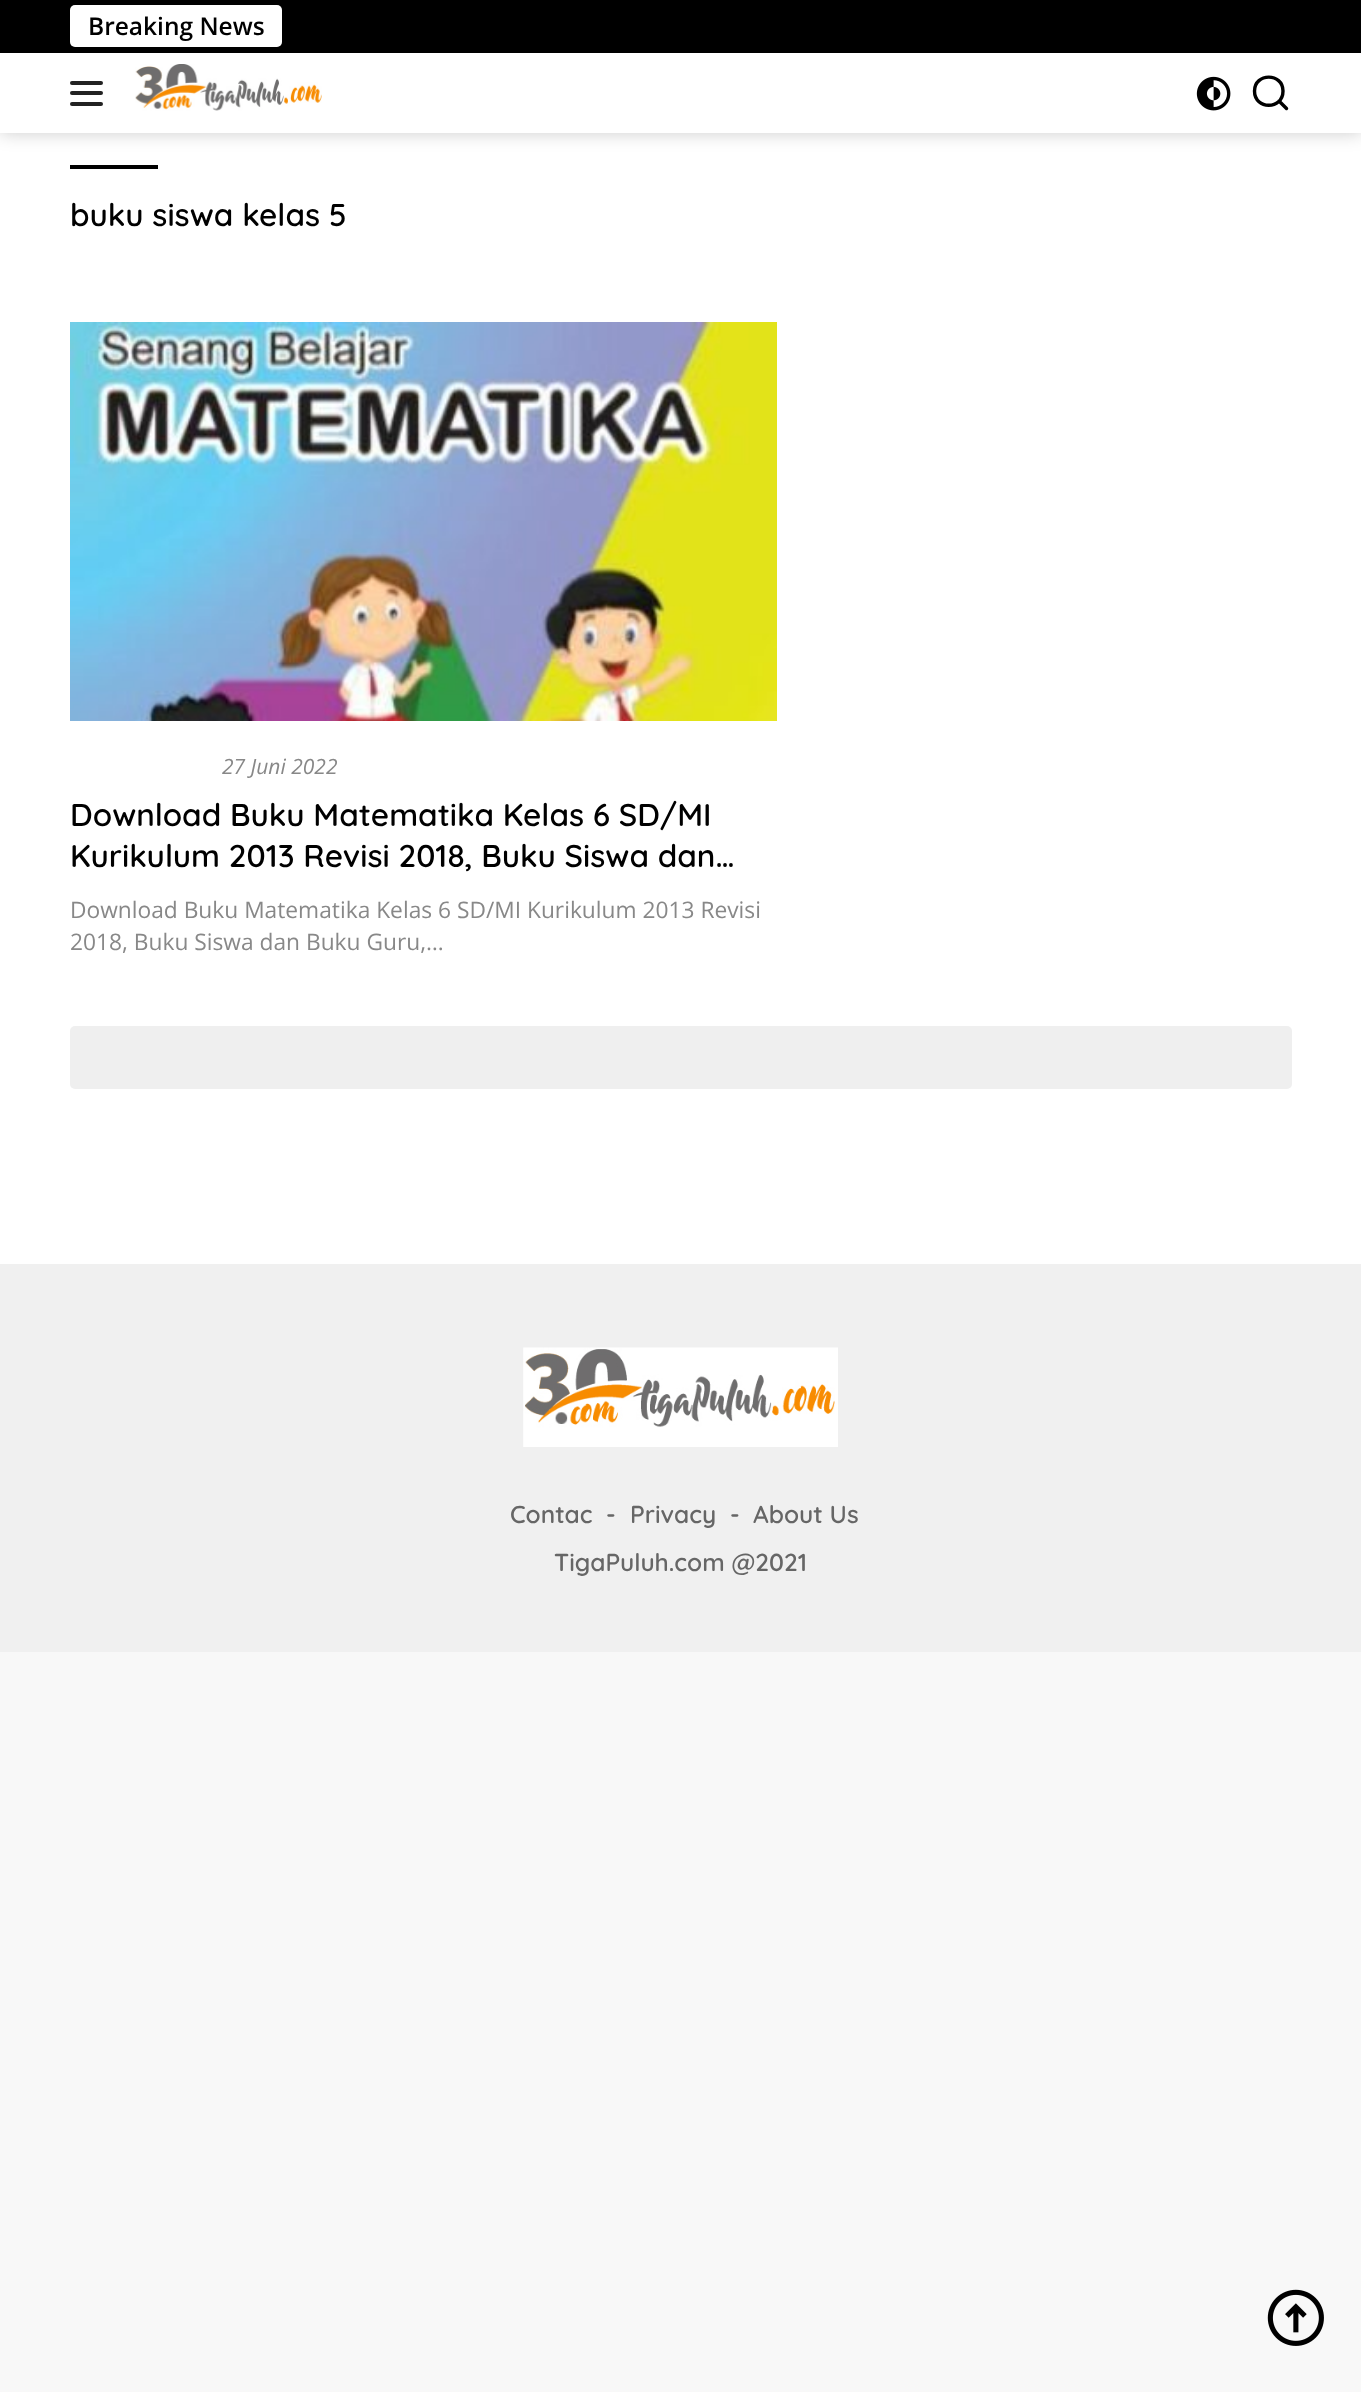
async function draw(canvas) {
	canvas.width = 1361;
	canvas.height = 2392;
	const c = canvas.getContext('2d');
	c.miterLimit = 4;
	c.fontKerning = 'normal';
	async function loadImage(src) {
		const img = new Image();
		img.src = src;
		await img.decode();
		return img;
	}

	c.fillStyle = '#f8f8f8';
	c.fillRect(0, 0, 1361, 2392);
	c.fillStyle = '#fff';
	c.fillRect(0, 133, 1361, 1131);
	c.fillStyle = '#00000033';
	c.filter = 'blur(9px)';
	c.beginPath();
	c.rect(0, 0, 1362, 133);
	c.fill();
	c.filter = 'none';
	c.fillStyle = '#fff';
	c.fillRect(0, 53, 1361, 80);
	c.fillStyle = '#000';
	c.fillRect(0, 0, 1361, 53);
	c.fillStyle = '#fff';
	c.beginPath();
	c.roundRect(70, 5, 212, 42, 5);
	c.fill();
	c.font = '600 24.5px Open Sans';
	c.fillStyle = '#000';
	c.fillText('Breaking News', 88, 35);
	c.fillStyle = '#222';
	c.beginPath();
	c.roundRect(70, 81, 33, 4, 2);
	c.fill();
	c.beginPath();
	c.roundRect(70, 91, 33, 4, 2);
	c.fill();
	c.beginPath();
	c.roundRect(70, 102, 33, 4, 2);
	c.fill();
	c.drawImage(await loadImage('img1.png'), 135, 64, 187, 47);
	c.drawImage(await loadImage('img2.png'), 1196, 76, 35, 35);
	c.beginPath();
	c.moveTo(1286.5, 108.5);
	c.lineTo(1279, 101);
	c.moveTo(1283, 91);
	c.bezierCurveTo(1283, 110, 1254.5, 110, 1254.5, 91);
	c.bezierCurveTo(1254.5, 72.5, 1283, 72.5, 1283, 91);
	c.closePath();
	c.strokeStyle = '#000';
	c.lineWidth = 3.4;
	c.lineCap = 'round';
	c.stroke();
	c.fillStyle = '#000';
	c.fillRect(70, 165, 88, 4);
	c.font = '600 31.5px Quicksand';
	c.fillText('buku siswa kelas 5', 70, 226);
	c.drawImage(await loadImage('img3.png'), 70, 322, 707, 399);
	c.font = 'italic 21px Open Sans';
	c.fillStyle = '#888';
	c.fillText('27 Juni 2022', 222, 774);
	c.font = '600 31.5px Quicksand';
	c.fillStyle = '#000';
	c.fillText('Download Buku Matematika Kelas 6 SD/MI', 70, 826);
	c.fillText('Kurikulum 2013 Revisi 2018, Buku Siswa dan…', 70, 867);
	c.font = '22.75px Open Sans';
	c.fillStyle = '#888';
	c.fillText('Download Buku Matematika Kelas 6 SD/MI Kurikulum 2013 Revisi', 70, 918);
	c.fillText('2018, Buku Siswa dan Buku Guru,…', 70, 950);
	c.fillStyle = '#efefef';
	c.beginPath();
	c.roundRect(70, 1026, 1222, 63, 5);
	c.fill();
	c.fillStyle = '#f0f0f0';
	c.fillRect(0, 1264, 1361, 388);
	c.drawImage(await loadImage('img4.png'), 523, 1347, 315, 100);
	c.font = '600 24.5px Quicksand';
	c.fillStyle = '#666';
	for (const [text, x, y] of [
		['Contac', 510, 1523],
		['-', 606, 1523],
		['Privacy', 630, 1523],
		['-', 730, 1523],
		['About Us', 753, 1523],
		['TigaPuluh.com @2021', 554, 1571],
	]) {
		c.fillText(text, x, y);
	}
	c.drawImage(await loadImage('img5.png'), 1267, 2289, 57, 57);
}

draw(document.querySelector('canvas'));
